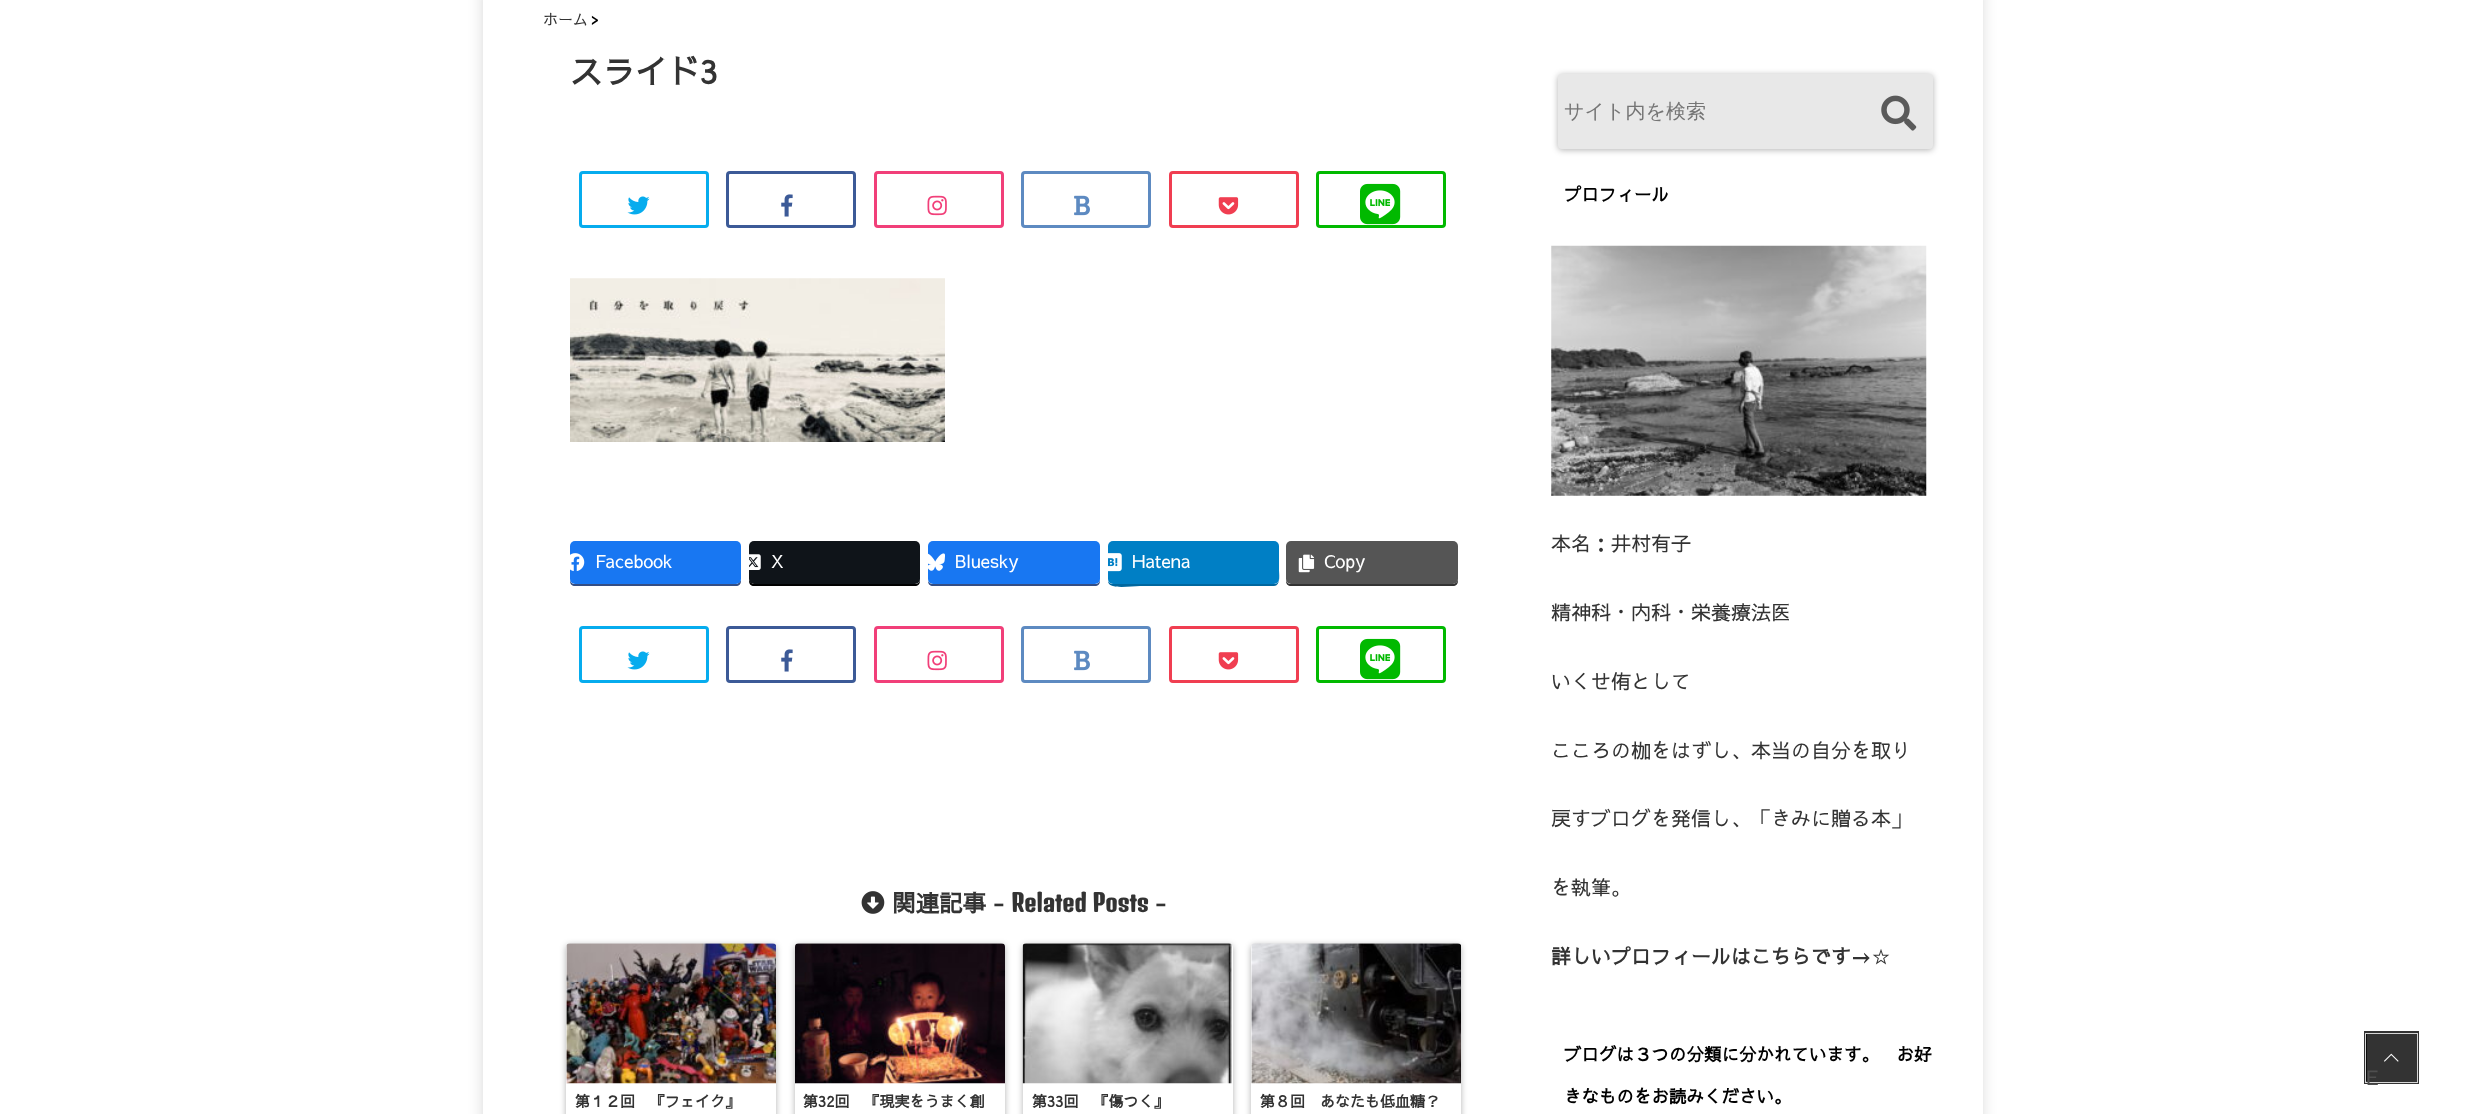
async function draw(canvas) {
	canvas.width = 2465;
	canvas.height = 1114;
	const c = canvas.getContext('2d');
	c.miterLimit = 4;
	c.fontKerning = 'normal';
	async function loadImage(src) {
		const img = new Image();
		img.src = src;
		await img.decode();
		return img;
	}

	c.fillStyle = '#fff';
	c.fillRect(0, 0, 2465, 1114);
	c.fillStyle = '#0000004d';
	c.filter = 'blur(9.5px)';
	c.beginPath();
	c.rect(489, -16, 1487, 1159);
	c.fill();
	c.filter = 'none';
	c.fillStyle = '#fff';
	c.fillRect(483, 0, 1500, 1114);
	c.font = '15px Sawarabi Gothic';
	c.fillStyle = '#333';
	c.fillText('ホーム', 543, 25);
	c.font = 'bold 15px Sawarabi Gothic';
	c.fillStyle = '#000';
	c.fillText('>', 591, 25);
	c.font = 'bold 32.5px Sawarabi Gothic';
	c.fillStyle = '#333';
	c.fillText('スライド3', 570, 84);
	c.beginPath();
	c.roundRect(580.5, 172.5, 127, 54, 2.5);
	c.strokeStyle = '#06acee';
	c.lineWidth = 3;
	c.stroke();
	c.drawImage(await loadImage('img1.png'), 627, 196, 23, 19);
	c.beginPath();
	c.roundRect(727.5, 172.5, 127, 54, 2.5);
	c.strokeStyle = '#3c5a97';
	c.stroke();
	c.drawImage(await loadImage('img2.png'), 781, 194, 12, 23);
	c.beginPath();
	c.roundRect(875.5, 172.5, 127, 54, 2.5);
	c.strokeStyle = '#f13f79';
	c.stroke();
	c.drawImage(await loadImage('img3.png'), 927, 195, 20, 21);
	c.beginPath();
	c.roundRect(1022.5, 172.5, 127, 54, 2.5);
	c.strokeStyle = '#5d8ac1';
	c.stroke();
	c.drawImage(await loadImage('img4.png'), 1074, 195, 16, 21);
	c.beginPath();
	c.roundRect(1170.5, 172.5, 127, 54, 2.5);
	c.strokeStyle = '#f03e51';
	c.stroke();
	c.drawImage(await loadImage('img5.png'), 1218, 197, 21, 18);
	c.beginPath();
	c.roundRect(1317.5, 172.5, 127, 54, 2.5);
	c.strokeStyle = '#01b900';
	c.stroke();
	c.drawImage(await loadImage('img6.png'), 1360, 183, 41, 42);
	c.drawImage(await loadImage('img7.png'), 570, 278, 375, 164);
	c.fillStyle = '#344e84';
	c.beginPath();
	c.moveTo(570, 579);
	c.lineTo(570, 581);
	c.bezierCurveTo(570, 584, 572, 586, 575, 586);
	c.lineTo(736, 586);
	c.bezierCurveTo(739, 586, 741, 584, 741, 581);
	c.lineTo(741, 580);
	c.bezierCurveTo(740, 582, 738, 584, 736, 584);
	c.lineTo(575, 584);
	c.bezierCurveTo(572, 584, 570, 582, 570, 579);
	c.closePath();
	c.fill();
	c.fillStyle = '#1877f2';
	c.beginPath();
	c.roundRect(570, 541, 171, 43, 5);
	c.fill();
	c.drawImage(await loadImage('img8.png'), 570, 553, 15, 19);
	c.font = '18px Sawarabi Gothic';
	c.fillStyle = '#fff';
	c.fillText('Facebook', 595, 568);
	c.fillStyle = '#000';
	c.beginPath();
	c.moveTo(749, 580);
	c.lineTo(749, 581);
	c.bezierCurveTo(749, 584, 751, 586, 754, 586);
	c.lineTo(915, 586);
	c.bezierCurveTo(918, 586, 920, 584, 920, 581);
	c.lineTo(920, 579);
	c.bezierCurveTo(920, 582, 918, 584, 915, 584);
	c.lineTo(754, 584);
	c.bezierCurveTo(752, 584, 750, 582, 749, 580);
	c.closePath();
	c.fill();
	c.fillStyle = '#0f1419';
	c.beginPath();
	c.roundRect(749, 541, 171, 43, 5);
	c.fill();
	c.drawImage(await loadImage('img9.png'), 749, 554, 12, 16);
	c.fillStyle = '#fff';
	c.fillText('X', 771, 568);
	c.fillStyle = '#344e84';
	c.beginPath();
	c.moveTo(928, 581);
	c.bezierCurveTo(928, 584, 930, 586, 933, 586);
	c.lineTo(1095, 586);
	c.bezierCurveTo(1098, 586, 1100, 584, 1100, 581);
	c.lineTo(1100, 579);
	c.bezierCurveTo(1100, 582, 1098, 584, 1095, 584);
	c.lineTo(932, 584);
	c.bezierCurveTo(931, 584, 929, 583, 928, 581);
	c.closePath();
	c.fill();
	c.fillStyle = '#1877f2';
	c.beginPath();
	c.roundRect(928, 541, 172, 43, 5);
	c.fill();
	c.drawImage(await loadImage('img10.png'), 928, 553, 17, 18);
	c.fillStyle = '#fff';
	c.fillText('Bluesky', 955, 568);
	c.fillStyle = '#00679f';
	c.beginPath();
	c.moveTo(1108, 581);
	c.bezierCurveTo(1108, 590, 1130, 586, 1140, 586);
	c.lineTo(1274, 586);
	c.bezierCurveTo(1281, 586, 1279, 574, 1279, 570);
	c.lineTo(1279, 547);
	c.lineTo(1279, 579);
	c.bezierCurveTo(1279, 582, 1277, 584, 1274, 584);
	c.lineTo(1112, 584);
	c.bezierCurveTo(1111, 584, 1109, 583, 1108, 581);
	c.closePath();
	c.fill();
	c.fillStyle = '#007fc5';
	c.beginPath();
	c.roundRect(1108, 541, 171, 43, 5);
	c.fill();
	c.drawImage(await loadImage('img11.png'), 1108, 553, 14, 19);
	c.fillStyle = '#fff';
	c.fillText('Hatena', 1132, 568);
	c.fillStyle = '#333';
	c.beginPath();
	c.moveTo(1286, 547);
	c.lineTo(1286, 581);
	c.bezierCurveTo(1286, 584, 1288, 586, 1291, 586);
	c.lineTo(1453, 586);
	c.bezierCurveTo(1456, 586, 1458, 584, 1458, 581);
	c.lineTo(1458, 549);
	c.lineTo(1458, 547);
	c.lineTo(1458, 579);
	c.bezierCurveTo(1458, 582, 1455, 584, 1452, 584);
	c.lineTo(1291, 584);
	c.bezierCurveTo(1288, 584, 1286, 582, 1286, 579);
	c.closePath();
	c.fill();
	c.fillStyle = '#555';
	c.beginPath();
	c.roundRect(1286, 541, 172, 43, 5);
	c.fill();
	c.drawImage(await loadImage('img12.png'), 1298, 554, 17, 19);
	c.fillStyle = '#fff';
	c.fillText('Copy', 1324, 568);
	c.beginPath();
	c.roundRect(580.5, 627.5, 127, 54, 2.5);
	c.strokeStyle = '#06acee';
	c.stroke();
	c.drawImage(await loadImage('img1.png'), 627, 651, 23, 19);
	c.beginPath();
	c.roundRect(727.5, 627.5, 127, 54, 2.5);
	c.strokeStyle = '#3c5a97';
	c.stroke();
	c.drawImage(await loadImage('img2.png'), 781, 649, 12, 23);
	c.beginPath();
	c.roundRect(875.5, 627.5, 127, 54, 2.5);
	c.strokeStyle = '#f13f79';
	c.stroke();
	c.drawImage(await loadImage('img3.png'), 927, 650, 20, 21);
	c.beginPath();
	c.roundRect(1022.5, 627.5, 127, 54, 2.5);
	c.strokeStyle = '#5d8ac1';
	c.stroke();
	c.drawImage(await loadImage('img4.png'), 1074, 650, 16, 21);
	c.beginPath();
	c.roundRect(1170.5, 627.5, 127, 54, 2.5);
	c.strokeStyle = '#f03e51';
	c.stroke();
	c.drawImage(await loadImage('img5.png'), 1218, 652, 21, 18);
	c.beginPath();
	c.roundRect(1317.5, 627.5, 127, 54, 2.5);
	c.strokeStyle = '#01b900';
	c.stroke();
	c.drawImage(await loadImage('img6.png'), 1360, 638, 41, 42);
	c.drawImage(await loadImage('img13.png'), 861, 891, 24, 23);
	c.font = 'bold 23.5px Sawarabi Gothic';
	c.fillStyle = '#333';
	c.fillText('関連記事 -', 892, 912);
	c.font = 'bold 23.5px Denk One';
	c.fillText('Related Posts', 1011, 912);
	c.font = 'bold 23.5px Sawarabi Gothic';
	c.fillText('-', 1155, 912);
	c.fillStyle = '#0000004d';
	c.filter = 'blur(3px)';
	c.beginPath();
	c.roundRect(566, 945, 210, 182, 4);
	c.fill();
	c.filter = 'none';
	c.fillStyle = '#fff';
	c.beginPath();
	c.roundRect(566, 944, 210, 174, 4);
	c.fill();
	c.drawImage(await loadImage('img14.png'), 566, 943, 210, 141);
	c.font = 'bold 15px Sawarabi Gothic';
	c.fillStyle = '#333';
	c.fillText('第１２回　『フェイク』', 575, 1107);
	c.fillStyle = '#0000004d';
	c.filter = 'blur(3px)';
	c.beginPath();
	c.roundRect(795, 945, 210, 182, 4);
	c.fill();
	c.filter = 'none';
	c.fillStyle = '#fff';
	c.beginPath();
	c.roundRect(795, 944, 210, 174, 4);
	c.fill();
	c.drawImage(await loadImage('img15.png'), 795, 943, 210, 141);
	c.fillStyle = '#333';
	c.fillText('第32回　『現実をうまく創', 803, 1107);
	c.fillStyle = '#0000004d';
	c.filter = 'blur(3px)';
	c.beginPath();
	c.roundRect(1023, 945, 210, 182, 4);
	c.fill();
	c.filter = 'none';
	c.fillStyle = '#fff';
	c.beginPath();
	c.roundRect(1023, 944, 210, 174, 4);
	c.fill();
	c.drawImage(await loadImage('img16.png'), 1022, 943, 210, 141);
	c.fillStyle = '#333';
	c.fillText('第33回　『傷つく』', 1032, 1107);
	c.fillStyle = '#0000004d';
	c.filter = 'blur(3px)';
	c.beginPath();
	c.roundRect(1251, 945, 210, 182, 4);
	c.fill();
	c.filter = 'none';
	c.fillStyle = '#fff';
	c.beginPath();
	c.roundRect(1251, 944, 210, 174, 4);
	c.fill();
	c.drawImage(await loadImage('img17.png'), 1251, 943, 210, 141);
	c.fillStyle = '#333';
	c.fillText('第８回　あなたも低血糖？', 1260, 1107);
	c.fillStyle = '#0000004d';
	c.filter = 'blur(3px)';
	c.beginPath();
	c.roundRect(1558, 75, 375, 75, 4);
	c.fill();
	c.filter = 'none';
	c.fillStyle = '#e8e8e8';
	c.beginPath();
	c.roundRect(1558, 74, 375, 75, 4);
	c.fill();
	c.font = '500 20px WenQuanYi Zen Hei';
	c.fillStyle = '#757575';
	c.fillText('サイト内を検索', 1564, 118);
	c.drawImage(await loadImage('img18.png'), 1881, 95, 36, 36);
	c.font = 'bold 17.5px Sawarabi Gothic';
	c.fillStyle = '#000';
	c.fillText('プロフィール', 1564, 201);
	c.drawImage(await loadImage('img19.png'), 1551, 245, 376, 251);
	c.font = '20px Sawarabi Gothic';
	c.fillStyle = '#333';
	for (const [text, x, y] of [
		['本名：井村有子', 1551, 551],
		['精神科・内科・栄養療法医', 1551, 620],
		['いくせ侑として', 1551, 689],
		['こころの枷をはずし、本当の自分を取り', 1551, 758],
		['戻すブログを発信し、「きみに贈る本」', 1551, 826],
		['を執筆。', 1551, 895],
	]) {
		c.fillText(text, x, y);
	}
	c.font = 'bold 20px Sawarabi Gothic';
	c.fillText('詳しいプロフィールはこちらです→', 1551, 964);
	c.font = '20px Sawarabi Gothic';
	c.fillText('☆', 1871, 964);
	c.font = 'bold 17.5px Sawarabi Gothic';
	c.fillStyle = '#000';
	c.fillText('ブログは３つの分類に分かれています。　お好', 1564, 1061);
	c.fillText('きなものをお読みください。', 1564, 1103);
	c.strokeStyle = '#333';
	c.strokeRect(2365.5, 1032.5, 52, 50);
	c.strokeStyle = '#d6d6d6';
	c.lineWidth = 1;
	c.strokeRect(2365.5, 1033.5, 52, 49);
	c.fillStyle = '#000000cc';
	c.fillRect(2366, 1034, 50, 47);
	c.drawImage(await loadImage('img20.png'), 2384, 1053, 15, 9);
	c.font = '20px Sawarabi Gothic';
	c.fillStyle = '#4e4e4e';
	c.fillText('E', 2366, 1085);
}

draw(document.querySelector('canvas'));
